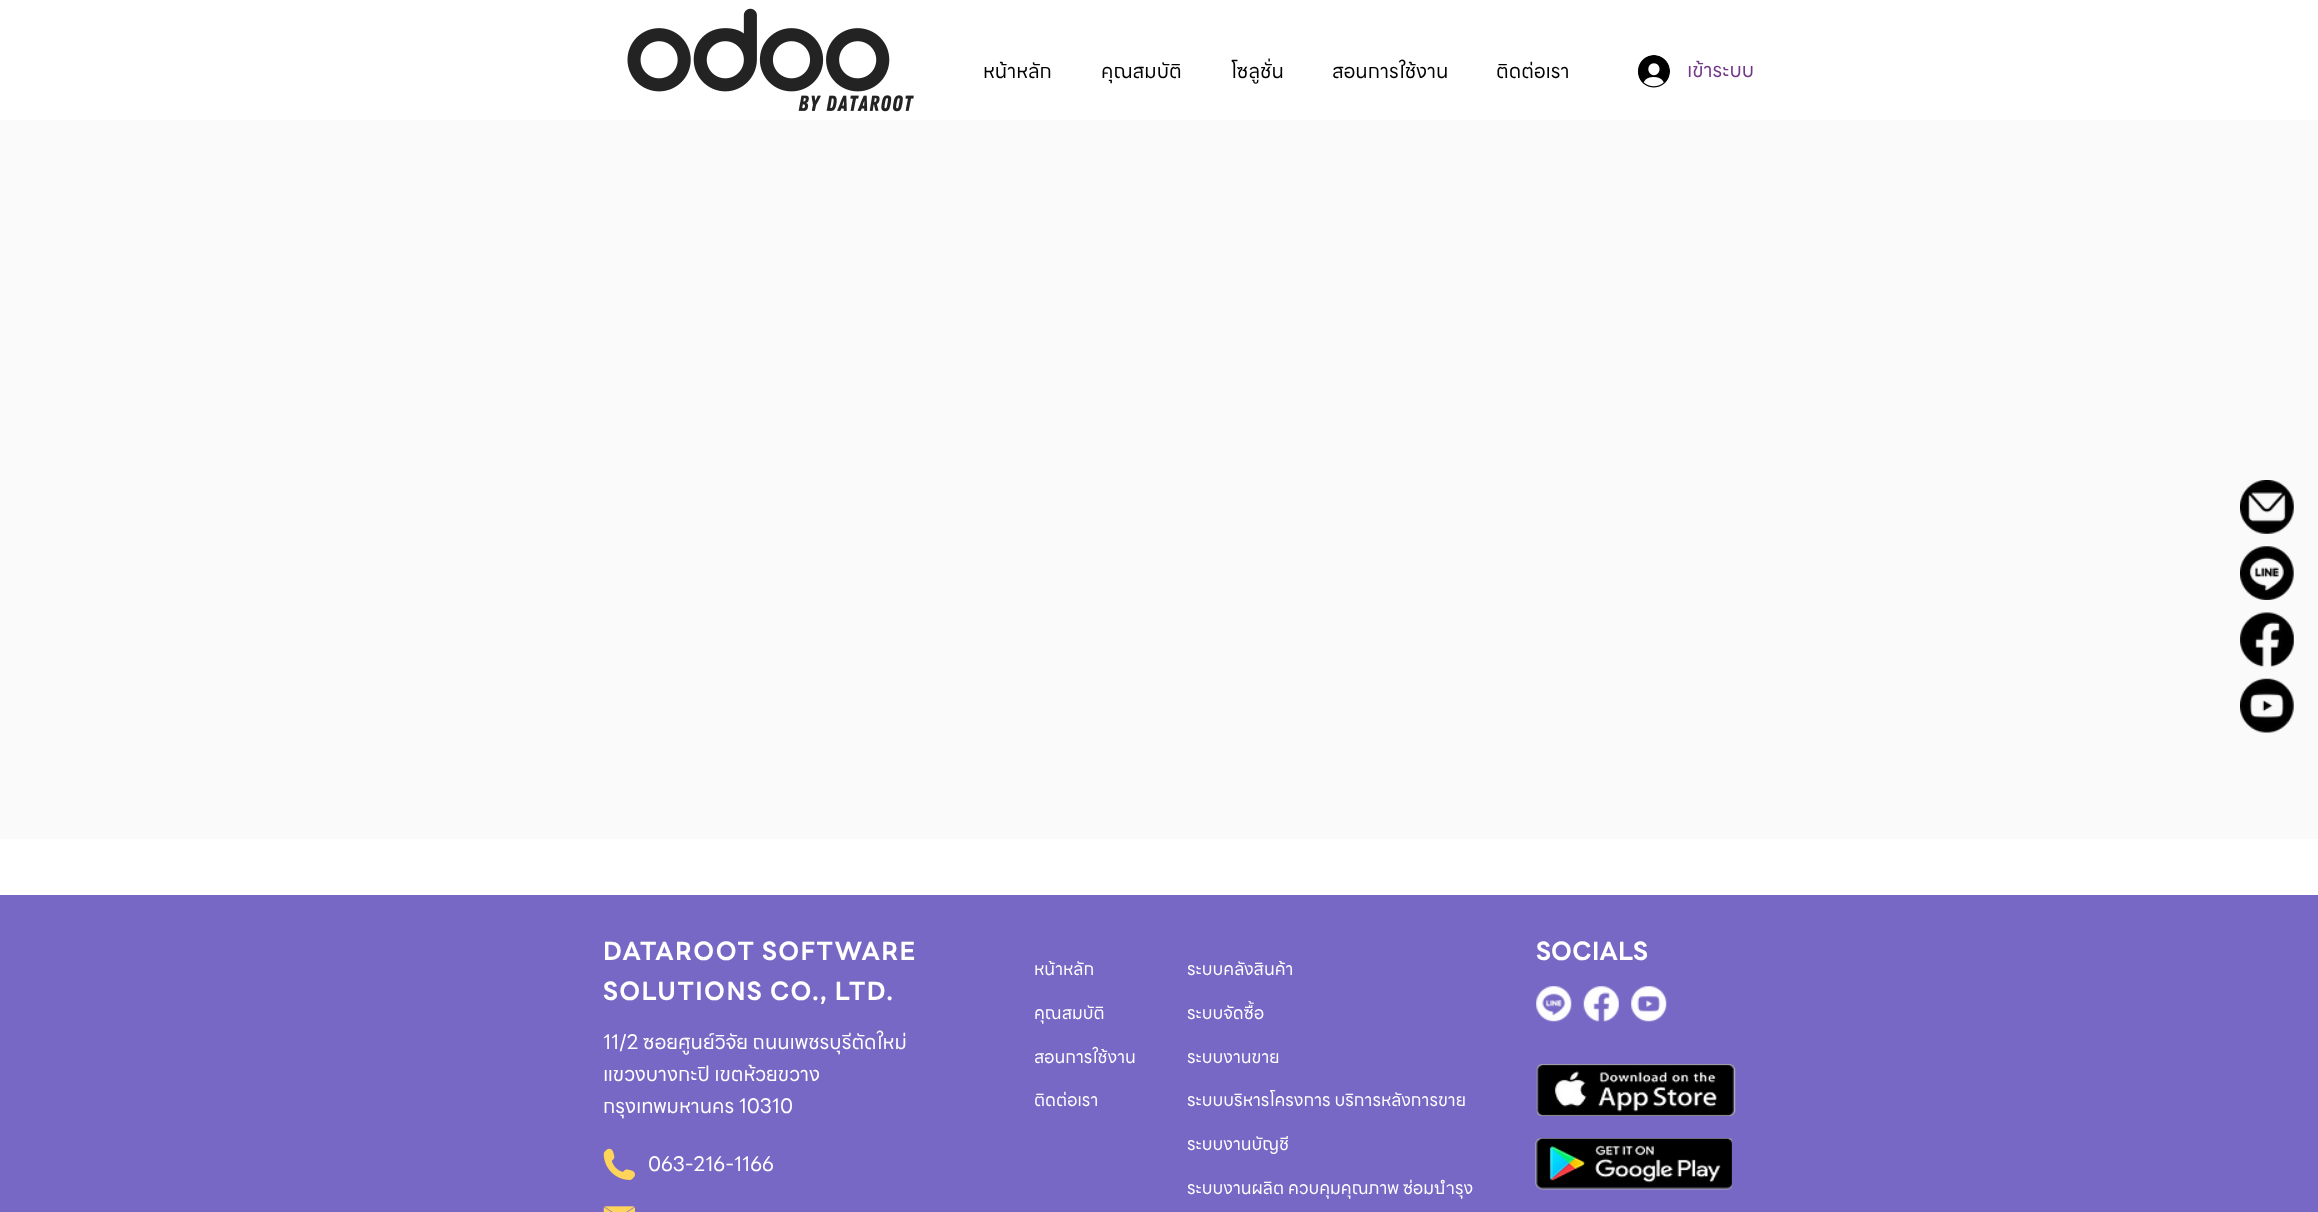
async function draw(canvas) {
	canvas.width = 2318;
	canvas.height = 1212;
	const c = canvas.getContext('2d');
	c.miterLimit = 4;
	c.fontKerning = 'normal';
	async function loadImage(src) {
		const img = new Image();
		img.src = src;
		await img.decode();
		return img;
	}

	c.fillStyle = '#fff';
	c.fillRect(0, 0, 2318, 1212);
	c.drawImage(await loadImage('img1.png'), 627, 8, 287, 104);
	c.font = '20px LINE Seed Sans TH';
	c.fillStyle = '#000';
	for (const [text, x, y] of [
		['หน้าหลัก', 983, 78],
		['คุณสมบัติ', 1101, 78],
		['โซลูชั่น', 1231, 78],
		['สอนการใช้งาน', 1332, 78],
		['ติดต่อเรา', 1496, 78],
	]) {
		c.fillText(text, x, y);
	}
	c.drawImage(await loadImage('img2.png'), 1638, 55, 32, 33);
	c.fillStyle = '#733787';
	c.fillText('เข้าระบบ', 1687, 77);
	c.fillStyle = '#fafafa';
	c.fillRect(0, 120, 2318, 719);
	c.drawImage(await loadImage('img3.png'), 2240, 480, 54, 54);
	c.drawImage(await loadImage('img4.png'), 2240, 546, 54, 54);
	c.drawImage(await loadImage('img5.png'), 2240, 612, 54, 55);
	c.drawImage(await loadImage('img6.png'), 2240, 678, 54, 55);
	c.fillStyle = '#7768c5';
	c.fillRect(0, 895, 2318, 317);
	c.letterSpacing = '1.25px';
	c.font = 'bold 25px LINE Seed Sans TH';
	c.fillStyle = '#fff';
	c.fillText('DATAROOT SOFTWARE', 603, 960);
	c.fillText('SOLUTIONS CO., LTD.', 603, 1000);
	c.letterSpacing = '0px';
	c.fillText('SOCIALS', 1536, 960);
	c.font = '17.5px LINE Seed Sans TH';
	for (const [text, x, y] of [
		['หน้าหลัก', 1034, 975],
		['คุณสมบัติ', 1034, 1019],
		['สอนการใช้งาน', 1034, 1063],
		['ติดต่อเรา', 1034, 1106],
		['ระบบคลังสินค้า', 1187, 975],
		['ระบบจัดซื้อ', 1187, 1019],
		['ระบบงานขาย', 1187, 1063],
		['ระบบบริหารโครงการ บริการหลังการขาย', 1187, 1106],
		['ระบบงานบัญชี', 1187, 1150],
		['ระบบงานผลิต ควบคุมคุณภาพ ซ่อมบำรุง', 1187, 1194],
	]) {
		c.fillText(text, x, y);
	}
	c.drawImage(await loadImage('img7.png'), 1536, 986, 36, 36);
	c.drawImage(await loadImage('img8.png'), 1583, 986, 36, 36);
	c.drawImage(await loadImage('img9.png'), 1631, 986, 36, 36);
	c.font = '20px LINE Seed Sans TH';
	for (const [text, x, y] of [
		['11/2 ซอยศูนย์วิจัย ถนนเพชรบุรีตัดใหม่', 603, 1049],
		['แขวงบางกะปิ เขตห้วยขวาง', 603, 1081],
		['กรุงเทพมหานคร 10310', 603, 1113],
	]) {
		c.fillText(text, x, y);
	}
	c.drawImage(await loadImage('img10.png'), 1536, 1064, 200, 52);
	c.drawImage(await loadImage('img11.png'), 603, 1148, 32, 32);
	c.fillText('063-216-1166', 648, 1171);
	c.drawImage(await loadImage('img12.png'), 1535, 1138, 197, 52);
	c.drawImage(await loadImage('img13.png'), 603, 1206, 32, 6);
}

draw(document.querySelector('canvas'));
